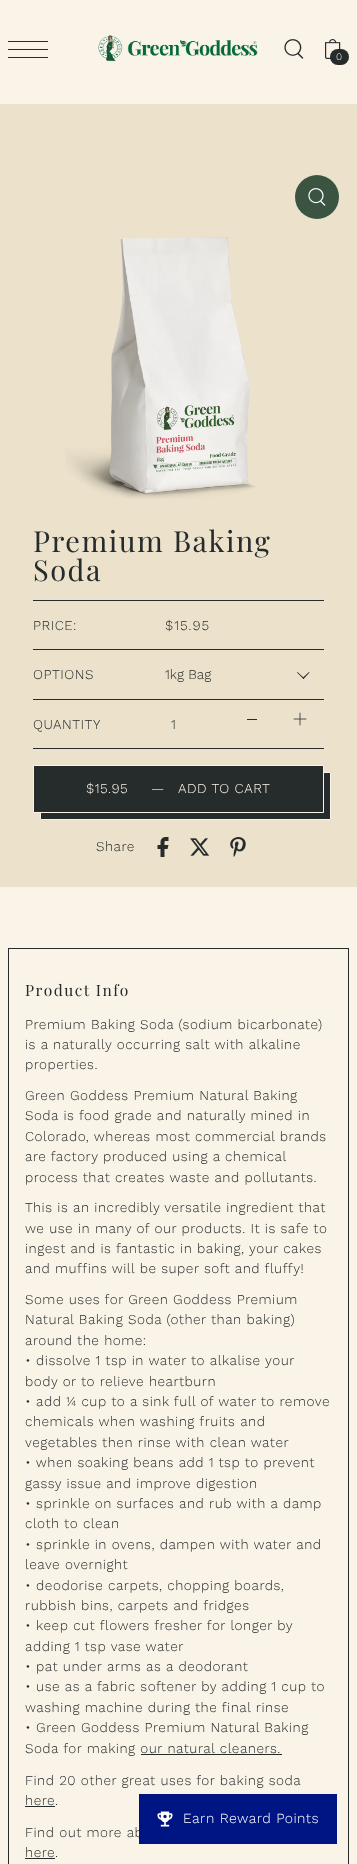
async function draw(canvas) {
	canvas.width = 357;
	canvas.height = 1864;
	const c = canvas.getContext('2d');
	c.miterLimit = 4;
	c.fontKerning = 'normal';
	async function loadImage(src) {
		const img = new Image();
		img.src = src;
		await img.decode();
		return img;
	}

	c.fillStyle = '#faf4e8';
	c.fillRect(0, 0, 357, 1864);
	for (const [x, y, w, h, color] of [
		[8, 41, 40, 1, '#262b2c'],
		[8, 49, 40, 1, '#262b2c'],
		[8, 57, 40, 1, '#262b2c'],
	]) {
		c.fillStyle = color;
		c.fillRect(x, y, w, h);
	}
	c.drawImage(await loadImage('img1.png'), 98, 35, 160, 27);
	c.drawImage(await loadImage('img2.png'), 284, 39, 20, 20);
	c.drawImage(await loadImage('img3.png'), 325, 39, 16, 20);
	c.beginPath();
	c.roundRect(330, 49, 19, 16, 8);
	c.fill();
	c.letterSpacing = '0.5px';
	c.font = '300 10px Work Sans';
	c.fillStyle = '#faf4e8';
	c.fillText('0', 336, 60);
	c.fillStyle = '#ece2cc';
	c.fillRect(0, 104, 357, 783);
	c.fillStyle = '#3b5442';
	c.beginPath();
	c.arc(317, 197, 22, 0, 2 * Math.PI);
	c.fill();
	c.drawImage(await loadImage('img4.png'), 308, 188, 18, 18);
	c.drawImage(await loadImage('img5.png'), 65, 237, 191, 262);
	c.letterSpacing = '1.5px';
	c.font = '29px Playfair Display';
	c.fillStyle = '#262b2c';
	c.fillText('Premium Baking', 33, 552);
	c.fillText('Soda', 33, 581);
	c.fillRect(33, 600, 291, 1);
	c.letterSpacing = '0.5px';
	c.font = '300 13.6px Work Sans';
	c.fillText('PRICE:', 33, 630);
	c.letterSpacing = '1px';
	c.fillText('$15.95', 165, 630);
	c.fillRect(33, 649, 291, 1);
	c.fillRect(33, 699, 291, 1);
	c.letterSpacing = '0.5px';
	c.fillText('OPTIONS', 33, 679);
	c.letterSpacing = '0px';
	c.fillText('1kg Bag', 165, 679);
	c.beginPath();
	c.moveTo(309, 672);
	c.lineTo(309.5, 672.5);
	c.lineTo(303.5, 679);
	c.lineTo(302.5, 678);
	c.closePath();
	c.fill();
	c.beginPath();
	c.moveTo(297.5, 672);
	c.lineTo(304, 678);
	c.lineTo(303.5, 679);
	c.lineTo(297, 672.5);
	c.closePath();
	c.fill();
	c.fillRect(33, 748, 291, 1);
	c.letterSpacing = '0.5px';
	c.fillText('QUANTITY', 33, 729);
	c.fillRect(247, 719, 10, 1);
	c.drawImage(await loadImage('img6.png'), 293, 712, 14, 14);
	c.fillText('1', 171, 729);
	c.beginPath();
	c.roundRect(40.5, 772.5, 290, 47, 0.5);
	c.fill();
	c.strokeStyle = '#faf4e8';
	c.stroke();
	c.beginPath();
	c.rect(33.5, 765.5, 290, 47);
	c.fill();
	c.stroke();
	c.fillStyle = '#faf4e8';
	for (const [text, x, y] of [
		['$15.95', 86, 793],
		['—', 151, 793],
		['ADD TO CART', 178, 793],
	]) {
		c.fillText(text, x, y);
	}
	c.fillStyle = '#262b2c';
	c.fillText('Share', 96, 851);
	c.drawImage(await loadImage('img7.png'), 157, 837, 12, 20);
	c.drawImage(await loadImage('img8.png'), 190, 838, 20, 18);
	c.drawImage(await loadImage('img9.png'), 230, 837, 16, 20);
	c.strokeStyle = '#262b2c';
	c.strokeRect(8.5, 948.5, 340, 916);
	c.letterSpacing = '1.5px';
	c.font = '15.5px Playfair Display';
	c.fillText('Product Info', 25, 996);
	c.letterSpacing = '0.5px';
	c.font = '300 13.6px Work Sans';
	for (const [text, x, y] of [
		['Premium Baking Soda (sodium bicarbonate)', 25, 1029],
		['is a naturally occurring salt with alkaline', 25, 1049],
		['properties.', 25, 1069],
		['Green Goddess Premium Natural Baking', 25, 1100],
		['Soda is food grade and naturally mined in', 25, 1120],
		['Colorado, whereas most commercial brands', 25, 1141],
		['are factory produced using a chemical', 25, 1161],
		['process that creates waste and pollutants.', 25, 1182],
		['This is an incredibly versatile ingredient that', 25, 1212],
		['we use in many of our products. It is safe to', 25, 1233],
		['ingest and is fantastic in baking, your cakes', 25, 1253],
		['and muffins will be super soft and fluffy!', 25, 1273],
		['Some uses for Green Goddess Premium', 25, 1304],
		['Natural Baking Soda (other than baking)', 25, 1324],
		['around the home:', 25, 1345],
		['• dissolve 1 tsp in water to alkalise your', 25, 1365],
		['body or to relieve heartburn', 25, 1386],
		['• add ¼ cup to a sink full of water to remove', 25, 1406],
		['chemicals when washing fruits and', 25, 1426],
		['vegetables then rinse with clean water', 25, 1447],
		['• when soaking beans add 1 tsp to prevent', 25, 1467],
		['gassy issue and improve digestion', 25, 1488],
		['• sprinkle on surfaces and rub with a damp', 25, 1508],
		['cloth to clean', 25, 1528],
		['• sprinkle in ovens, dampen with water and', 25, 1549],
		['leave overnight', 25, 1569],
		['• deodorise carpets, chopping boards,', 25, 1590],
		['rubbish bins, carpets and fridges', 25, 1610],
		['• keep cut flowers fresher for longer by', 25, 1630],
		['adding 1 tsp vase water', 25, 1651],
		['• pat under arms as a deodorant', 25, 1671],
		['• use as a fabric softener by adding 1 cup to', 25, 1691],
		['washing machine during the final rinse', 25, 1712],
		['• Green Goddess Premium Natural Baking', 25, 1732],
		['Soda for making our natural cleaners.', 25, 1753],
	]) {
		c.fillText(text, x, y);
	}
	c.fillRect(141, 1754, 141, 1);
	c.fillText('Find 20 other great uses for baking soda', 25, 1785);
	c.fillText('here.', 25, 1805);
	c.fillRect(25, 1806, 30, 1);
	c.fillText('Find out more ab', 25, 1837);
	c.fillText('here.', 25, 1857);
	c.fillRect(25, 1858, 30, 1);
	c.fillStyle = '#001584';
	c.fillRect(139, 1794, 198, 50);
	c.drawImage(await loadImage('img10.png'), 157, 1811, 16, 16);
	c.font = '300 14px Work Sans';
	c.fillStyle = '#fff';
	c.fillText('Earn Reward Points', 183, 1823);
}

draw(document.querySelector('canvas'));
